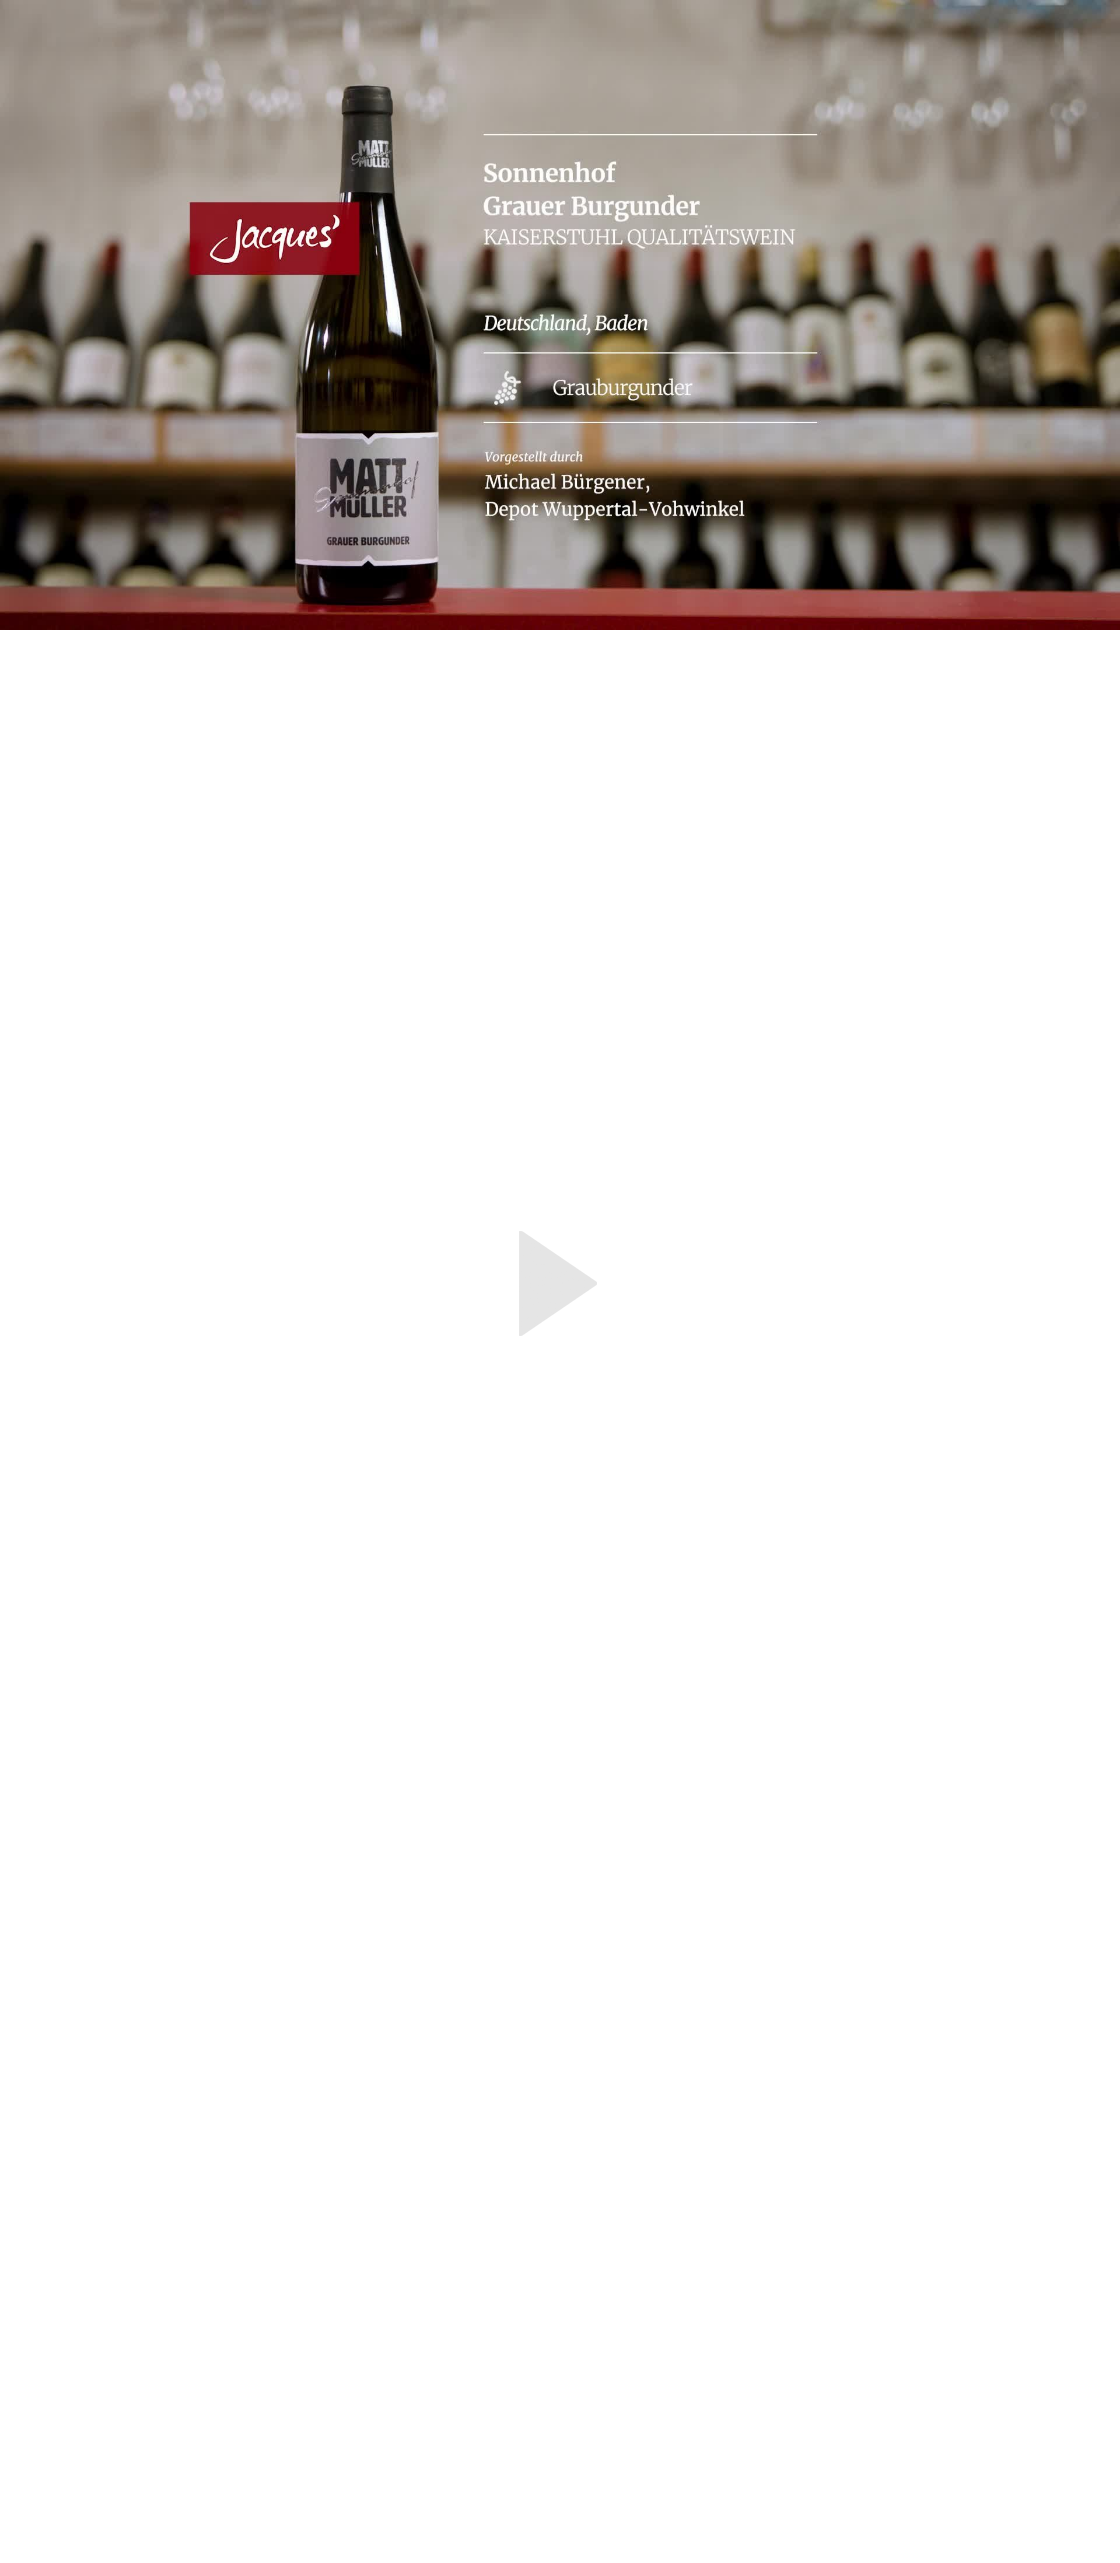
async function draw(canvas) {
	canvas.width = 1120;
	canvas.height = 2563;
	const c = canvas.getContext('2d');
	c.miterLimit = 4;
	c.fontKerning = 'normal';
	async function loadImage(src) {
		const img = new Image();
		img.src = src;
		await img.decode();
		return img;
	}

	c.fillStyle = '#fff';
	c.fillRect(0, 0, 1120, 2563);
	c.drawImage(await loadImage('img1.png'), 0, 0, 1120, 630);
	c.drawImage(await loadImage('img2.png'), 519, 1231, 78, 105);
}

draw(document.querySelector('canvas'));
